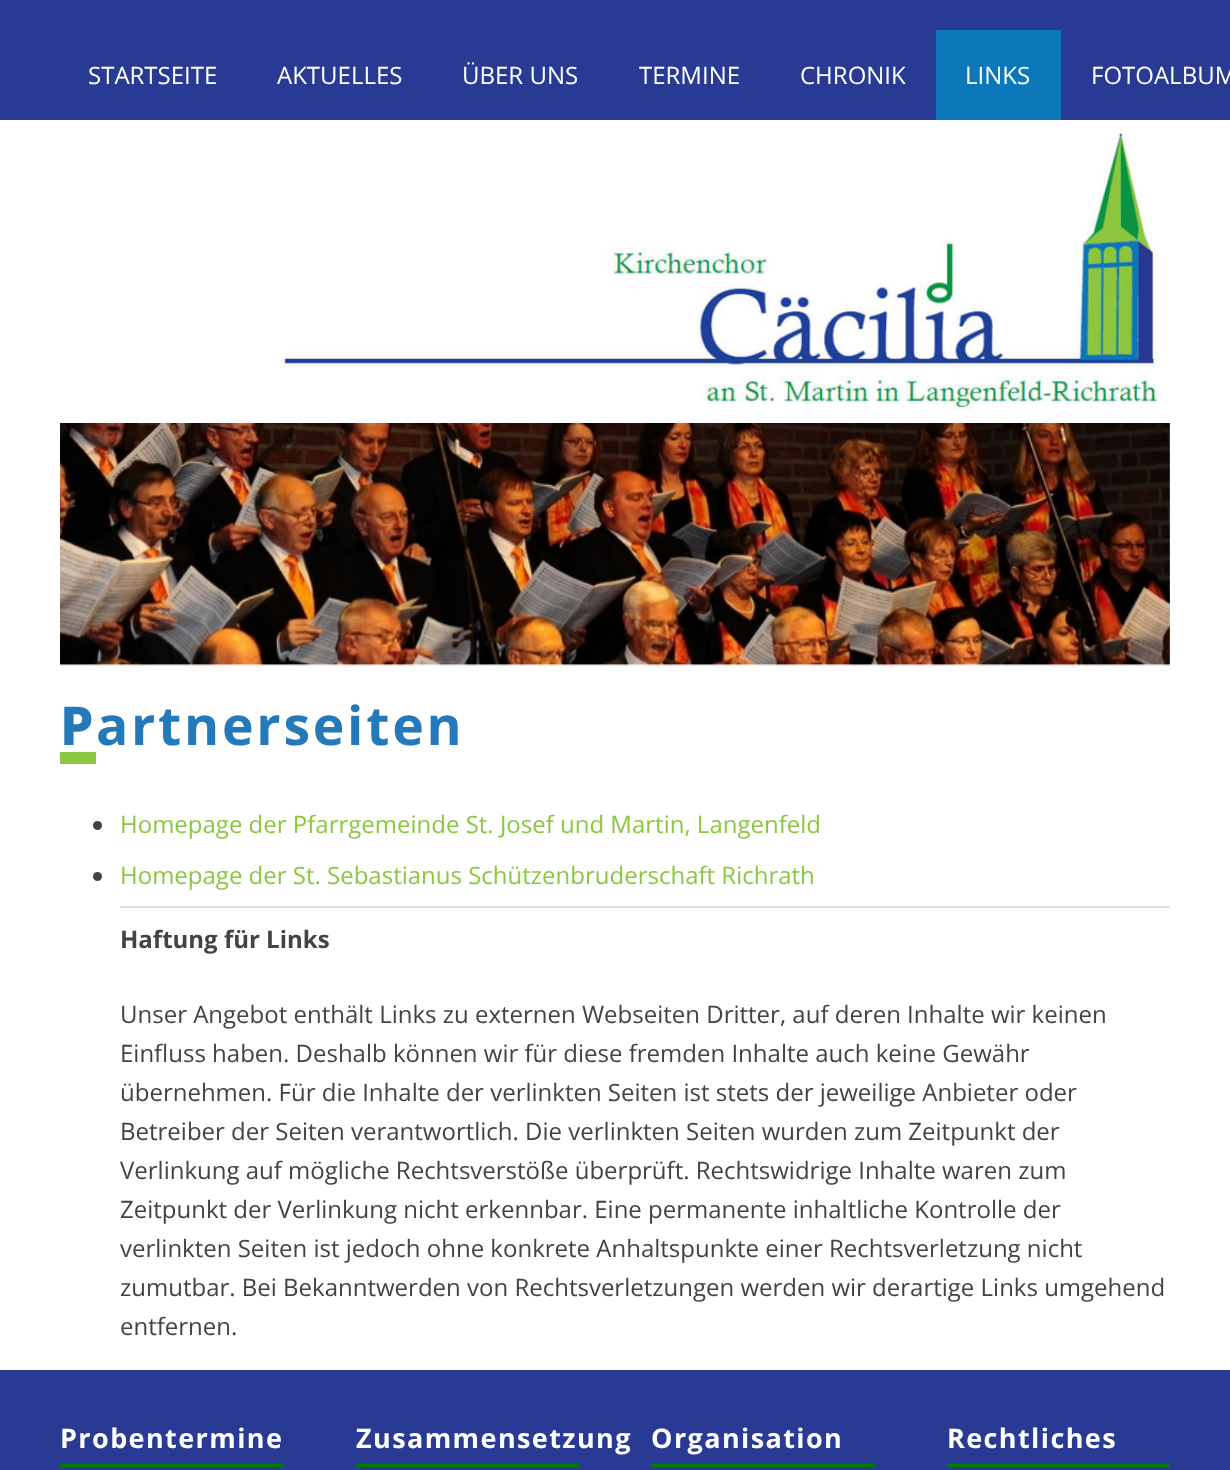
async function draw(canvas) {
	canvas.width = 1230;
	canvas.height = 1470;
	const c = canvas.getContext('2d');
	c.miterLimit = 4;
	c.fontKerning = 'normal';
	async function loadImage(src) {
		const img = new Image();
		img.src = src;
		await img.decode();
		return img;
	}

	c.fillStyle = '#fff';
	c.fillRect(0, 0, 1230, 1470);
	c.save();
	c.beginPath();
	c.moveTo(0, 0);
	c.lineTo(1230, 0);
	c.lineTo(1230, 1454);
	c.lineTo(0, 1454);
	c.closePath();
	c.moveTo(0, 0);
	c.lineTo(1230, 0);
	c.lineTo(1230, 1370);
	c.lineTo(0, 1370);
	c.closePath();
	c.clip('evenodd');
	c.fillStyle = '#20213399';
	c.filter = 'blur(22.5px)';
	c.beginPath();
	c.rect(0, 0, 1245, 1385);
	c.fill();
	c.filter = 'none';
	c.restore();
	c.fillStyle = '#293a94';
	c.fillRect(0, 0, 1230, 120);
	c.font = '24px Open Sans';
	c.fillStyle = '#fff';
	for (const [text, x, y] of [
		['STARTSEITE', 88, 84],
		['AKTUELLES', 277, 84],
		['ÜBER UNS', 462, 84],
		['TERMINE', 639, 84],
		['CHRONIK', 800, 84],
	]) {
		c.fillText(text, x, y);
	}
	c.fillStyle = '#0c78b9';
	c.fillRect(936, 30, 125, 90);
	c.fillStyle = '#fff';
	c.fillText('LINKS', 965, 84);
	c.fillText('FOTOALBUM', 1091, 84);
	c.drawImage(await loadImage('img1.png'), 282, 129, 879, 282);
	c.drawImage(await loadImage('img2.png'), 60, 423, 1110, 243);
	c.letterSpacing = '2.75px';
	c.font = '800 53.5px Noto Sans';
	c.fillStyle = '#2379b9';
	c.fillText('P', 60, 745);
	c.fillStyle = '#8bc741';
	c.fillRect(60, 752, 36, 12);
	c.font = 'bold 53.5px Open Sans';
	c.fillStyle = '#2379b9';
	c.fillText('artnerseiten', 96, 745);
	c.fillStyle = '#3f4544';
	c.beginPath();
	c.arc(97.5, 825.5, 4.5, 0, 2 * Math.PI);
	c.fill();
	c.letterSpacing = '0px';
	c.font = '24px Open Sans';
	c.fillStyle = '#8bc741';
	c.fillText('Homepage der Pfarrgemeinde St. Josef und Martin, Langenfeld', 120, 833);
	c.fillStyle = '#3f4544';
	c.beginPath();
	c.arc(97.5, 876.5, 4.5, 0, 2 * Math.PI);
	c.fill();
	c.fillStyle = '#8bc741';
	c.fillText('Homepage der St. Sebastianus Schützenbruderschaft Richrath', 120, 884);
	c.fillStyle = '#dadfe0';
	c.fillRect(120, 906, 1050, 2);
	c.font = 'bold 24px Open Sans';
	c.fillStyle = '#3f4544';
	c.fillText('Haftung für Links', 120, 948);
	c.font = '24px Open Sans';
	for (const [text, x, y] of [
		['Unser Angebot enthält Links zu externen Webseiten Dritter, auf deren Inhalte wir keinen', 120, 1023],
		['Einfluss haben. Deshalb können wir für diese fremden Inhalte auch keine Gewähr', 120, 1062],
		['übernehmen. Für die Inhalte der verlinkten Seiten ist stets der jeweilige Anbieter oder', 120, 1101],
		['Betreiber der Seiten verantwortlich. Die verlinkten Seiten wurden zum Zeitpunkt der', 120, 1140],
		['Verlinkung auf mögliche Rechtsverstöße überprüft. Rechtswidrige Inhalte waren zum', 120, 1179],
		['Zeitpunkt der Verlinkung nicht erkennbar. Eine permanente inhaltliche Kontrolle der', 120, 1218],
		['verlinkten Seiten ist jedoch ohne konkrete Anhaltspunkte einer Rechtsverletzung nicht', 120, 1257],
		['zumutbar. Bei Bekanntwerden von Rechtsverletzungen werden wir derartige Links umgehend', 120, 1296],
		['entfernen.', 120, 1335],
	]) {
		c.fillText(text, x, y);
	}
	c.fillStyle = '#293a94';
	c.fillRect(0, 1370, 1230, 100);
	c.fillStyle = '#008000';
	c.fillRect(60, 1464, 224, 3);
	c.letterSpacing = '1.4px';
	c.font = 'bold 27px Open Sans';
	c.fillStyle = '#fff';
	c.fillText('Probentermine', 60, 1448);
	c.fillStyle = '#008000';
	c.fillRect(356, 1464, 223, 3);
	c.fillStyle = '#fff';
	c.fillText('Zusammensetzung', 356, 1448);
	c.fillStyle = '#008000';
	c.fillRect(651, 1464, 224, 3);
	c.fillStyle = '#fff';
	c.fillText('Organisation', 651, 1448);
	c.fillStyle = '#008000';
	c.fillRect(947, 1464, 223, 3);
	c.fillStyle = '#fff';
	c.fillText('Rechtliches', 947, 1448);
}

draw(document.querySelector('canvas'));
